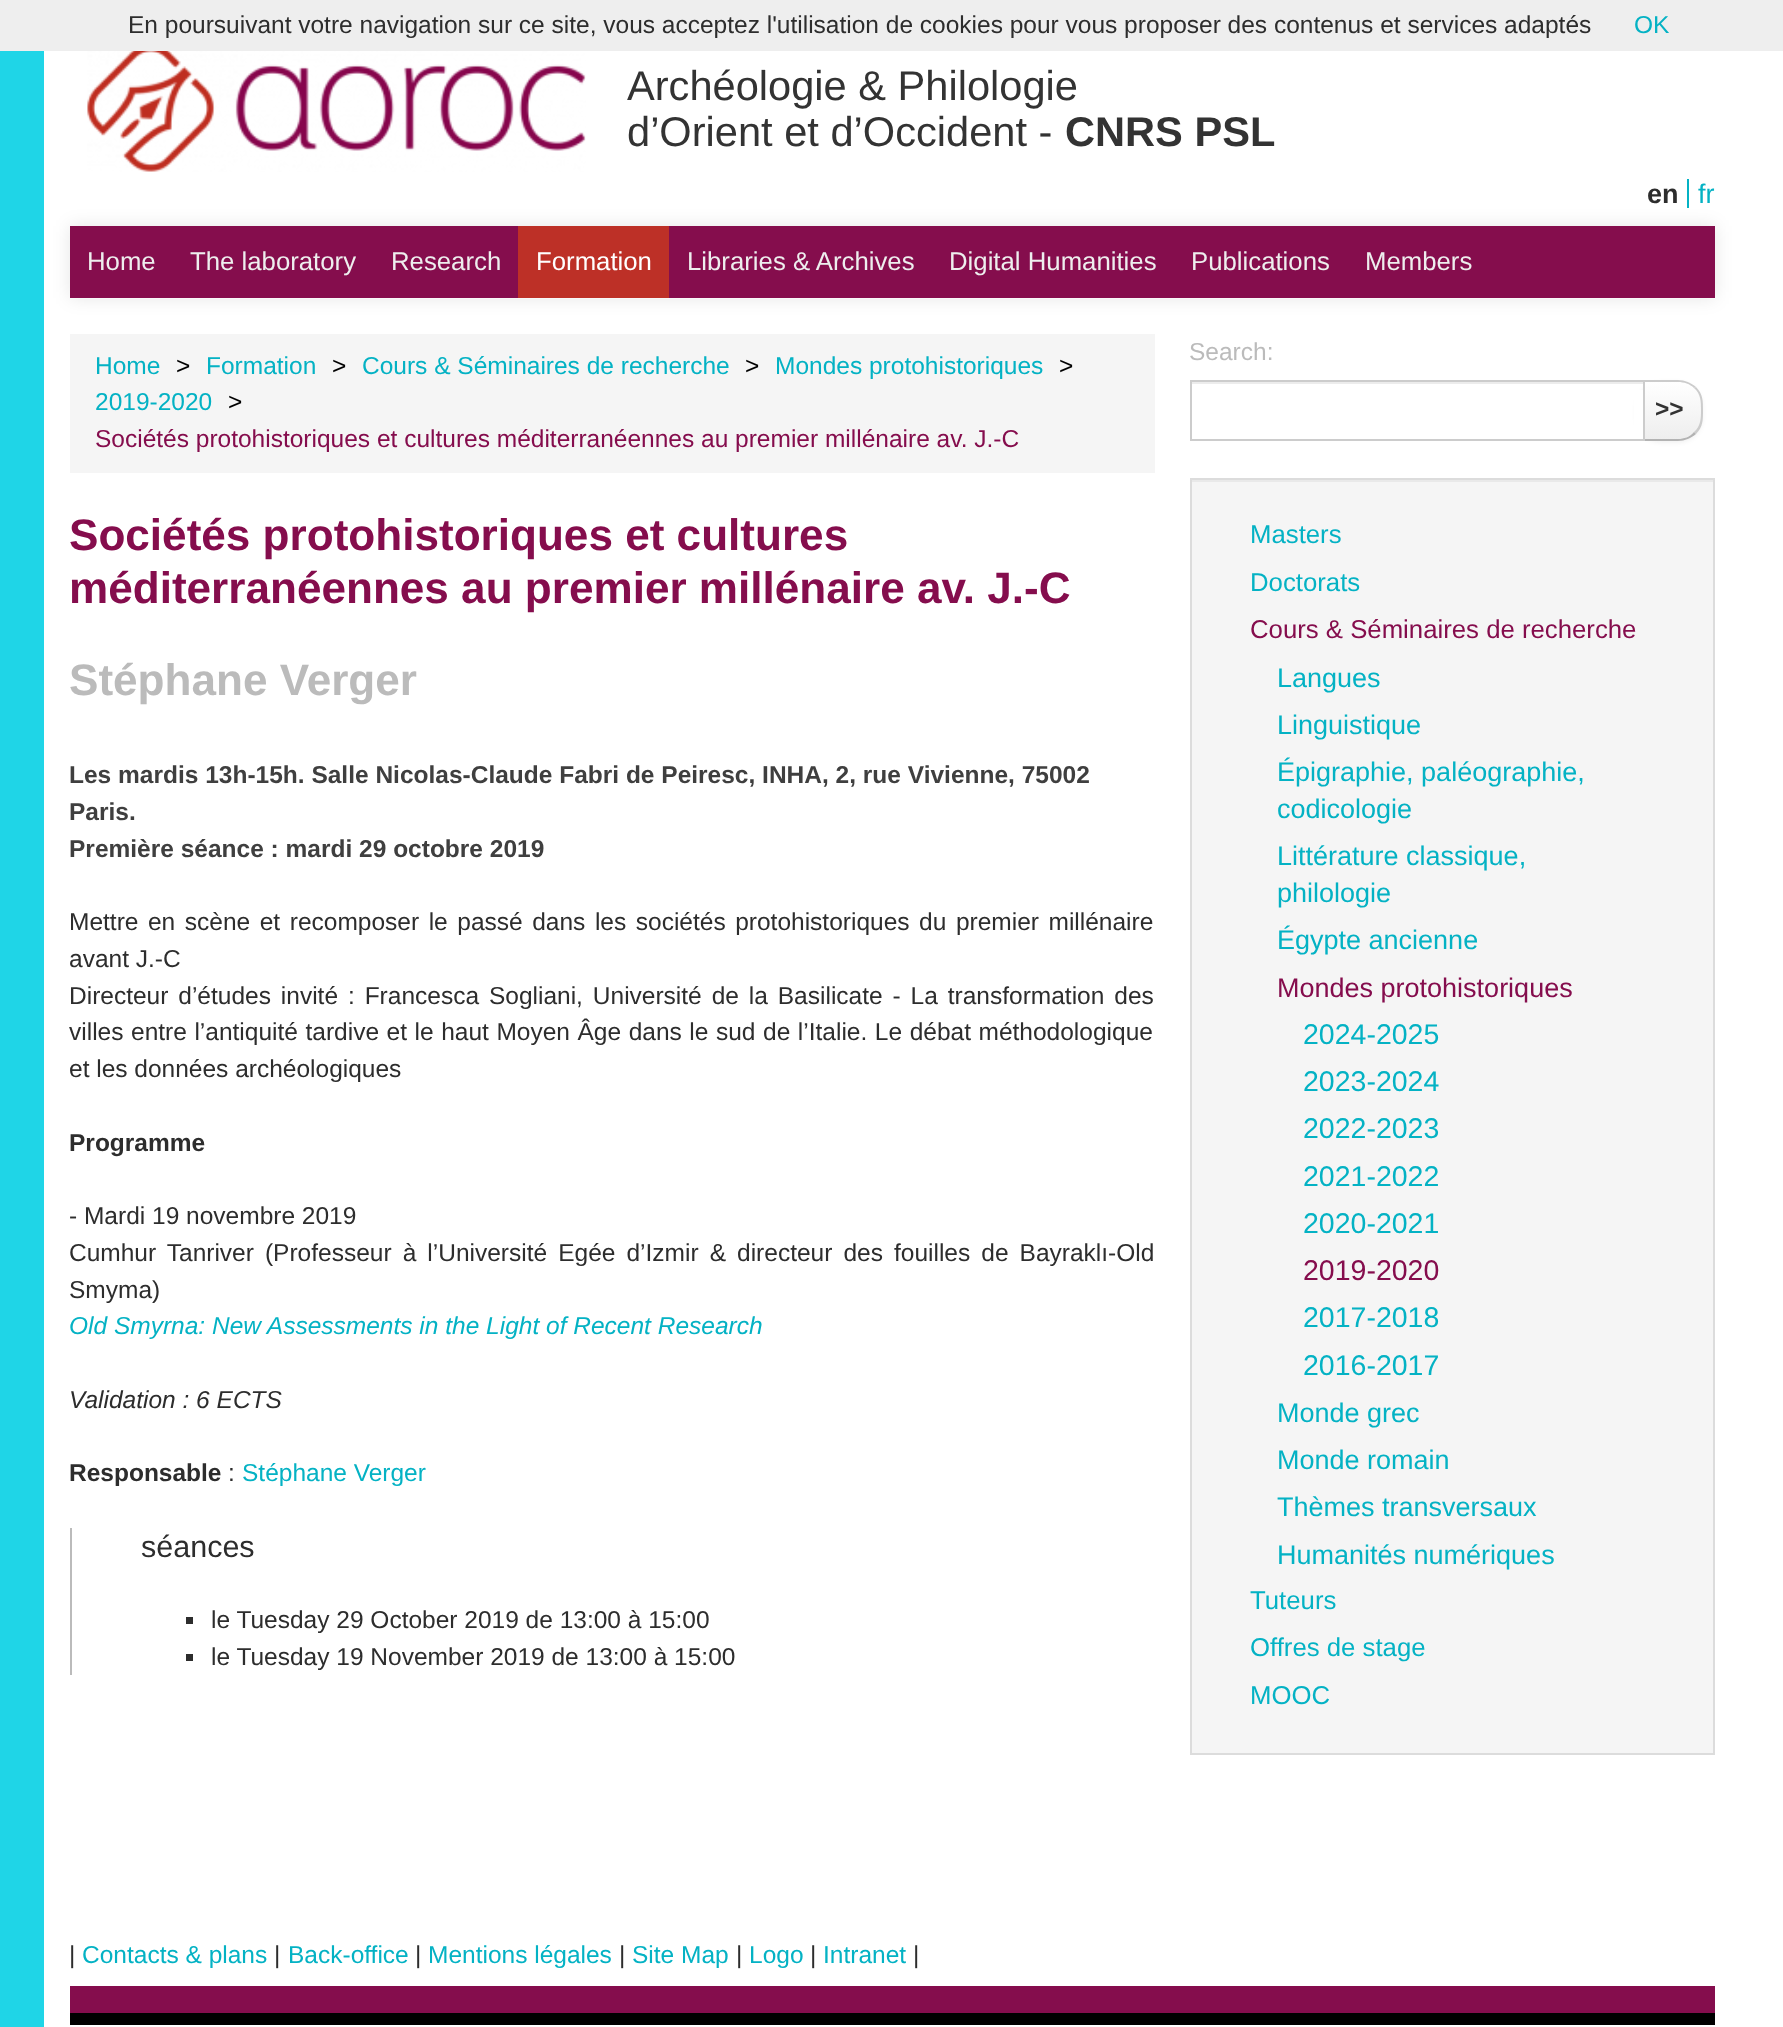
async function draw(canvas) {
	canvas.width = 1783;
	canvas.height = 2027;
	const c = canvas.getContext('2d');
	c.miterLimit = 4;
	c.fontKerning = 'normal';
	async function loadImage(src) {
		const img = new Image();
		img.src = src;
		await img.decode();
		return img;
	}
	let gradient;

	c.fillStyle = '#fff';
	c.fillRect(0, 0, 1783, 2027);
	c.fillStyle = '#eee';
	c.fillRect(0, 0, 1783, 51);
	c.font = '24.5px Liberation Sans';
	c.fillStyle = '#2d2d2d';
	c.fillText('En poursuivant votre navigation sur ce site, vous acceptez l\'utilisation de cookies pour vous proposer des contenus et services adaptés', 128, 33);
	c.fillStyle = '#04b2c4';
	c.fillText('OK', 1634, 33);
	c.fillStyle = '#0000001a';
	c.filter = 'blur(9px)';
	c.beginPath();
	c.rect(70, 226, 1645, 72);
	c.fill();
	c.filter = 'none';
	c.fillStyle = '#1fd5e7';
	c.fillRect(0, 51, 44, 1976);
	c.drawImage(await loadImage('img1.png'), 87, 51, 499, 121);
	c.font = '41.6px Liberation Sans';
	c.fillStyle = '#333';
	c.fillText('Archéologie & Philologie', 627, 100);
	c.fillText('d’Orient et d’Occident -', 627, 146);
	c.font = 'bold 41.6px Liberation Sans';
	c.fillText('CNRS PSL', 1065, 146);
	c.font = 'bold 27px Liberation Sans';
	c.fillStyle = '#2d2d2d';
	c.fillText('en', 1647, 203);
	c.font = '27px Liberation Sans';
	c.fillStyle = '#04b2c4';
	c.fillText('fr', 1698, 203);
	for (const [x, y, w, h, color] of [
		[1687, 179, 2, 29, '#04b2c4'],
		[70, 298, 1645, 1, '#ffffff66'],
		[70, 226, 1645, 72, '#850d4d'],
	]) {
		c.fillStyle = color;
		c.fillRect(x, y, w, h);
	}
	c.font = '25.75px Liberation Sans';
	c.fillStyle = '#eee';
	for (const [text, x, y] of [
		['Home', 87, 270],
		['The laboratory', 190, 270],
		['Research', 391, 270],
	]) {
		c.fillText(text, x, y);
	}
	c.fillStyle = '#bd3027';
	c.fillRect(518, 226, 151, 72);
	c.fillStyle = '#fff';
	c.fillText('Formation', 536, 270);
	c.fillStyle = '#eee';
	for (const [text, x, y] of [
		['Libraries & Archives', 687, 270],
		['Digital Humanities', 949, 270],
		['Publications', 1191, 270],
		['Members', 1365, 270],
	]) {
		c.fillText(text, x, y);
	}
	c.fillStyle = '#f5f5f5';
	c.fillRect(70, 334, 1085, 139);
	c.font = '24.5px Liberation Sans';
	c.fillStyle = '#04b2c4';
	c.fillText('Home', 95, 374);
	c.fillStyle = '#000';
	c.fillText('>', 176, 374);
	c.fillStyle = '#04b2c4';
	c.fillText('Formation', 206, 374);
	c.fillStyle = '#000';
	c.fillText('>', 332, 374);
	c.fillStyle = '#04b2c4';
	c.fillText('Cours & Séminaires de recherche', 362, 374);
	c.fillStyle = '#000';
	c.fillText('>', 745, 374);
	c.fillStyle = '#04b2c4';
	c.fillText('Mondes protohistoriques', 775, 374);
	c.fillStyle = '#000';
	c.fillText('>', 1059, 374);
	c.fillStyle = '#04b2c4';
	c.fillText('2019-2020', 95, 410);
	c.fillStyle = '#000';
	c.fillText('>', 228, 410);
	c.fillStyle = '#850d4d';
	c.fillText('Sociétés protohistoriques et cultures méditerranéennes au premier millénaire av. J.-C', 95, 447);
	c.font = 'bold 44.1px Liberation Sans';
	c.fillText('Sociétés protohistoriques et cultures', 69, 550);
	c.fillText('méditerranéennes au premier millénaire av. J.-C', 69, 603);
	c.fillStyle = '#bbb';
	c.fillText('Stéphane Verger', 69, 695);
	c.font = 'bold 24.5px Liberation Sans';
	c.fillStyle = '#3f3f3f';
	for (const [text, x, y] of [
		['Les mardis 13h-15h. Salle Nicolas-Claude Fabri de Peiresc, INHA, 2, rue Vivienne, 75002', 69, 783],
		['Paris.', 69, 820],
		['Première séance : mardi 29 octobre 2019', 69, 857],
	]) {
		c.fillText(text, x, y);
	}
	c.wordSpacing = '2.75px';
	c.font = '24.5px Liberation Sans';
	c.fillStyle = '#2d2d2d';
	c.fillText('Mettre en scène et recomposer le passé dans les sociétés protohistoriques du premier millénaire', 69, 930);
	c.wordSpacing = '0px';
	c.fillText('avant J.-C', 69, 967);
	c.wordSpacing = '3.1px';
	c.fillText('Directeur d’études invité : Francesca Sogliani, Université de la Basilicate - La transformation des', 69, 1004);
	c.wordSpacing = '0.75px';
	c.fillText('villes entre l’antiquité tardive et le haut Moyen Âge dans le sud de l’Italie. Le débat méthodologique', 69, 1040);
	c.wordSpacing = '0px';
	c.fillText('et les données archéologiques', 69, 1077);
	c.font = 'bold 24.5px Liberation Sans';
	c.fillText('Programme', 69, 1151);
	c.font = '24.5px Liberation Sans';
	c.fillText('- Mardi 19 novembre 2019', 69, 1224);
	c.wordSpacing = '4.25px';
	c.fillText('Cumhur Tanriver (Professeur à l’Université Egée d’Izmir & directeur des fouilles de Bayraklı-Old', 69, 1261);
	c.wordSpacing = '0px';
	c.fillText('Smyma)', 69, 1298);
	c.font = 'italic 24.5px Liberation Sans';
	c.fillStyle = '#04b2c4';
	c.fillText('Old Smyrna: New Assessments in the Light of Recent Research', 69, 1334);
	c.fillStyle = '#2d2d2d';
	c.fillText('Validation : 6 ECTS', 69, 1408);
	c.font = 'bold 24.5px Liberation Sans';
	c.fillText('Responsable', 69, 1481);
	c.font = '24.5px Liberation Sans';
	c.fillText(':', 228, 1481);
	c.fillStyle = '#04b2c4';
	c.fillText('Stéphane Verger', 242, 1481);
	c.fillStyle = '#bbb';
	c.fillRect(70, 1528, 2, 147);
	c.font = '30.5px Liberation Sans';
	c.fillStyle = '#2d2d2d';
	c.fillText('séances', 141, 1557);
	c.fillRect(186, 1617, 7, 7);
	c.font = '24.5px Liberation Sans';
	c.fillText('le Tuesday 29 October 2019 de 13:00 à 15:00', 211, 1628);
	c.fillRect(186, 1654, 7, 7);
	c.fillText('le Tuesday 19 November 2019 de 13:00 à 15:00', 211, 1665);
	c.fillStyle = '#bbb';
	c.fillText('Search:', 1189, 360);
	c.fillStyle = '#0000000d';
	c.filter = 'blur(2px)';
	c.beginPath();
	c.roundRect(1636, 382, 67, 61, 25);
	c.fill();
	c.filter = 'none';
	c.save();
	c.beginPath();
	c.roundRect(1636, 380, 67, 61, [0, 25, 25, 0]);
	c.clip();
	gradient = c.createLinearGradient(1670, 382, 1670, 439);
	gradient.addColorStop(0, '#fff');
	gradient.addColorStop(1, '#eee');
	c.fillStyle = gradient;
	c.fillRect(1645, 382, 58, 57);
	c.restore();
	c.fillStyle = '#ccc';
	c.beginPath();
	c.moveTo(1696, 387);
	c.bezierCurveTo(1691, 383, 1685, 380, 1678, 380);
	c.lineTo(1636, 380);
	c.lineTo(1638, 382);
	c.lineTo(1678, 382);
	c.bezierCurveTo(1684, 382, 1690, 384, 1694, 388);
	c.closePath();
	c.fill();
	c.beginPath();
	c.moveTo(1696, 387);
	c.bezierCurveTo(1703, 394, 1703, 401, 1703, 410);
	c.bezierCurveTo(1703, 420, 1703, 427, 1696, 434);
	c.lineTo(1694, 432);
	c.bezierCurveTo(1701, 426, 1701, 418, 1701, 410);
	c.bezierCurveTo(1701, 402, 1701, 394, 1694, 388);
	c.closePath();
	c.fill();
	c.fillStyle = '#b3b3b3';
	c.beginPath();
	c.moveTo(1636, 441);
	c.lineTo(1678, 441);
	c.bezierCurveTo(1685, 441, 1691, 438, 1696, 434);
	c.lineTo(1694, 432);
	c.bezierCurveTo(1690, 437, 1684, 439, 1678, 439);
	c.lineTo(1638, 439);
	c.closePath();
	c.fill();
	c.fillStyle = '#fff';
	c.fillRect(1634, 390, 9, 49);
	c.fillStyle = '#ececec';
	c.fillRect(1192, 382, 451, 2);
	c.strokeStyle = '#ccc';
	c.lineWidth = 2;
	c.strokeRect(1191, 381, 453, 59);
	c.font = 'bold 24.5px Liberation Sans';
	c.fillStyle = '#333';
	c.fillText('>>', 1655, 417);
	c.fillStyle = '#f5f5f5';
	c.fillRect(1192, 482, 521, 1271);
	c.fillStyle = '#e9e9e9';
	c.fillRect(1192, 480, 521, 2);
	c.strokeStyle = '#dcdcdc';
	c.strokeRect(1191, 479, 523, 1275);
	c.font = '25.75px Liberation Sans';
	c.fillStyle = '#04b2c4';
	c.fillText('Masters', 1250, 543);
	c.fillText('Doctorats', 1250, 591);
	c.fillStyle = '#850d4d';
	c.fillText('Cours & Séminaires de recherche', 1250, 638);
	c.font = '27px Liberation Sans';
	c.fillStyle = '#04b2c4';
	for (const [text, x, y] of [
		['Langues', 1277, 687],
		['Linguistique', 1277, 734],
		['Épigraphie, paléographie,', 1277, 781],
		['codicologie', 1277, 818],
		['Littérature classique,', 1277, 865],
		['philologie', 1277, 902],
		['Égypte ancienne', 1277, 949],
	]) {
		c.fillText(text, x, y);
	}
	c.fillStyle = '#850d4d';
	c.fillText('Mondes protohistoriques', 1277, 997);
	c.font = '28.5px Liberation Sans';
	c.fillStyle = '#04b2c4';
	for (const [text, x, y] of [
		['2024-2025', 1303, 1044],
		['2023-2024', 1303, 1091],
		['2022-2023', 1303, 1138],
		['2021-2022', 1303, 1186],
		['2020-2021', 1303, 1233],
	]) {
		c.fillText(text, x, y);
	}
	c.fillStyle = '#850d4d';
	c.fillText('2019-2020', 1303, 1280);
	c.fillStyle = '#04b2c4';
	c.fillText('2017-2018', 1303, 1327);
	c.fillText('2016-2017', 1303, 1375);
	c.font = '27px Liberation Sans';
	for (const [text, x, y] of [
		['Monde grec', 1277, 1422],
		['Monde romain', 1277, 1469],
		['Thèmes transversaux', 1277, 1516],
		['Humanités numériques', 1277, 1564],
	]) {
		c.fillText(text, x, y);
	}
	c.font = '25.75px Liberation Sans';
	for (const [text, x, y] of [
		['Tuteurs', 1250, 1609],
		['Offres de stage', 1250, 1656],
		['MOOC', 1250, 1704],
	]) {
		c.fillText(text, x, y);
	}
	c.font = '24.5px Liberation Sans';
	c.fillStyle = '#2d2d2d';
	c.fillText('|', 69, 1963);
	c.fillStyle = '#04b2c4';
	c.fillText('Contacts & plans', 82, 1963);
	c.fillStyle = '#2d2d2d';
	c.fillText('|', 274, 1963);
	c.fillStyle = '#04b2c4';
	c.fillText('Back-office', 288, 1963);
	c.fillStyle = '#2d2d2d';
	c.fillText('|', 415, 1963);
	c.fillStyle = '#04b2c4';
	c.fillText('Mentions légales', 428, 1963);
	c.fillStyle = '#2d2d2d';
	c.fillText('|', 619, 1963);
	c.fillStyle = '#04b2c4';
	c.fillText('Site Map', 632, 1963);
	c.fillStyle = '#2d2d2d';
	c.fillText('|', 736, 1963);
	c.fillStyle = '#04b2c4';
	c.fillText('Logo', 749, 1963);
	c.fillStyle = '#2d2d2d';
	c.fillText('|', 810, 1963);
	c.fillStyle = '#04b2c4';
	c.fillText('Intranet', 823, 1963);
	c.fillStyle = '#2d2d2d';
	c.fillText('|', 913, 1963);
	c.fillStyle = '#850d4d';
	c.fillRect(70, 1986, 1645, 27);
	c.fillStyle = '#000';
	c.fillRect(70, 2013, 1645, 12);
}

draw(document.querySelector('canvas'));
